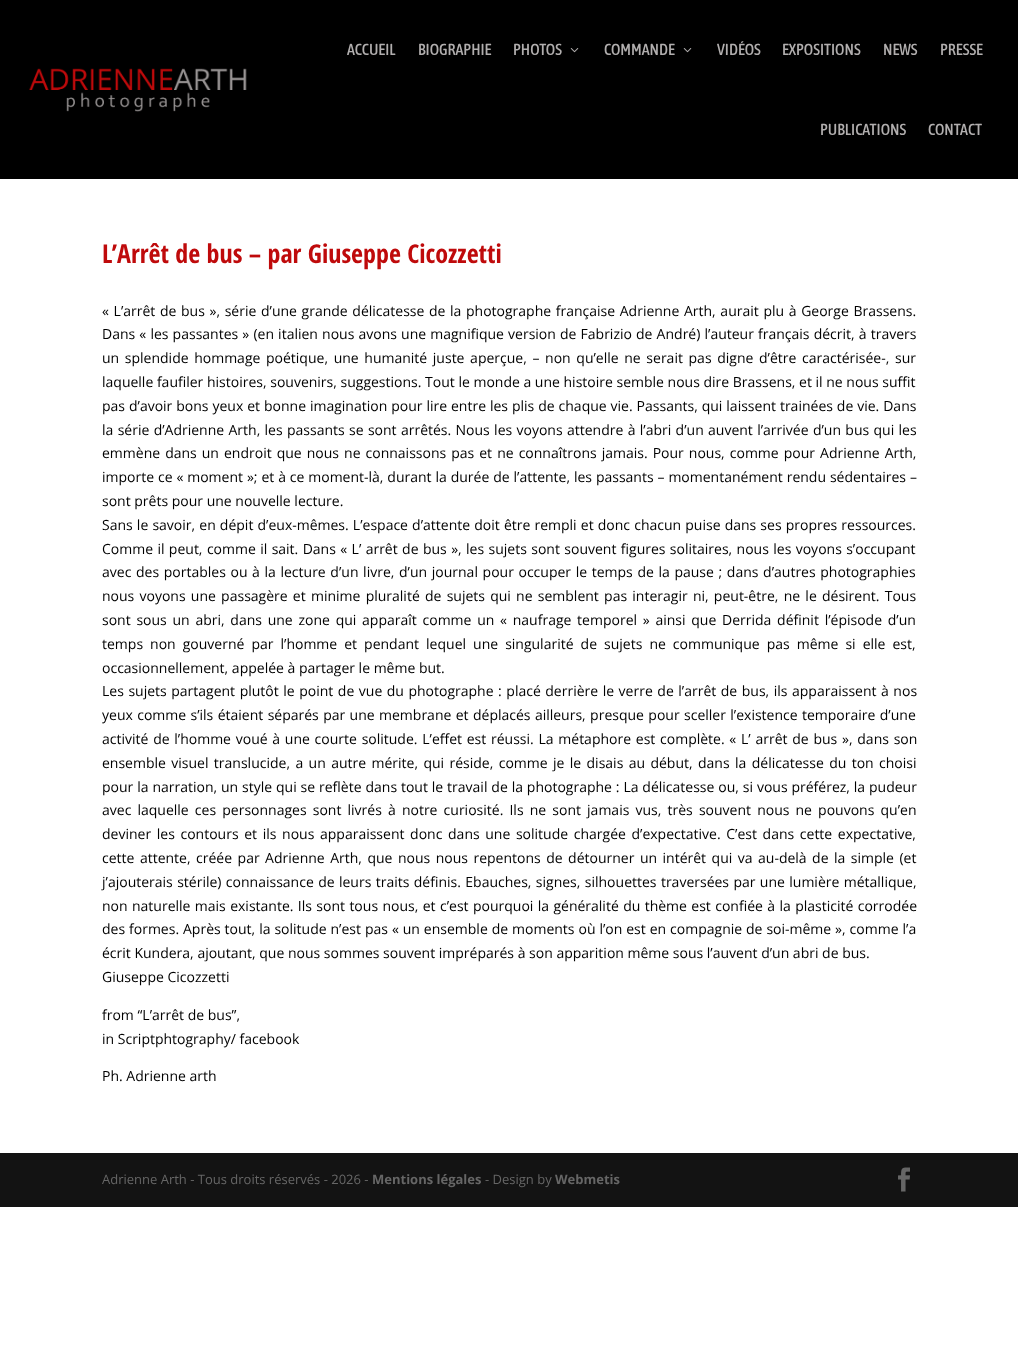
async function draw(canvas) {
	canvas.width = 1018;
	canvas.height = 1346;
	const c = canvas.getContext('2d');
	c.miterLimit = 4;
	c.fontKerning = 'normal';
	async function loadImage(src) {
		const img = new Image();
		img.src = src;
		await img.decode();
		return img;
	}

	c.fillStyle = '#fff';
	c.fillRect(0, 0, 1018, 1346);
	c.fillStyle = '#000';
	c.fillRect(0, 0, 1018, 179);
	c.drawImage(await loadImage('img1.png'), 29, 68, 218, 44);
	c.font = '500 16px Asap Condensed';
	c.fillStyle = '#b1aeae';
	for (const [text, x, y] of [
		['ACCUEIL', 347, 55],
		['BIOGRAPHIE', 418, 55],
		['PHOTOS', 513, 55],
	]) {
		c.fillText(text, x, y);
	}
	c.drawImage(await loadImage('img2.png'), 570, 48, 9, 5);
	c.fillText('COMMANDE', 604, 55);
	c.drawImage(await loadImage('img2.png'), 683, 48, 9, 5);
	for (const [text, x, y] of [
		['VIDÉOS', 717, 55],
		['EXPOSITIONS', 782, 55],
		['NEWS', 883, 55],
		['PRESSE', 940, 55],
		['PUBLICATIONS', 820, 135],
		['CONTACT', 928, 135],
	]) {
		c.fillText(text, x, y);
	}
	c.font = 'bold 26px Open Sans Condensed';
	c.fillStyle = '#bf0a0b';
	c.fillText('L’Arrêt de bus – par Giuseppe Cicozzetti', 102, 263);
	c.wordSpacing = '1px';
	c.font = '14px Open Sans';
	c.fillStyle = '#000';
	c.fillText('« L’arrêt de bus », série d’une grande délicatesse de la photographe française Adrienne Arth, aurait plu à George Brassens.', 102, 316);
	c.wordSpacing = '0.5px';
	c.fillText('Dans « les passantes » (en italien nous avons une magnifique version de Fabrizio de André) l’auteur français décrit, à travers', 102, 339);
	c.wordSpacing = '2px';
	c.fillText('un splendide hommage poétique, une humanité juste aperçue, – non qu’elle ne serait pas digne d’être caractérisée-, sur', 102, 363);
	c.wordSpacing = '0px';
	c.fillText('laquelle faufiler histoires, souvenirs, suggestions. Tout le monde a une histoire semble nous dire Brassens, et il ne nous suffit', 102, 387);
	c.wordSpacing = '0.3px';
	c.fillText('pas d’avoir bons yeux et bonne imagination pour lire entre les plis de chaque vie. Passants, qui laissent trainées de vie. Dans', 102, 411);
	c.wordSpacing = '0.7px';
	c.fillText('la série d’Adrienne Arth, les passants se sont arrêtés. Nous les voyons attendre à l’abri d’un auvent l’arrivée d’un bus qui les', 102, 435);
	c.wordSpacing = '1.4px';
	c.fillText('emmène dans un endroit que nous ne connaissons pas et ne connaîtrons jamais. Pour nous, comme pour Adrienne Arth,', 102, 458);
	c.wordSpacing = '0.25px';
	c.fillText('importe ce « moment »; et à ce moment-là, durant la durée de l’attente, les passants – momentanément rendu sédentaires –', 102, 482);
	c.wordSpacing = '0px';
	c.fillText('sont prêts pour une nouvelle lecture.', 102, 506);
	c.wordSpacing = '0.5px';
	c.fillText('Sans le savoir, en dépit d’eux-mêmes. L’espace d’attente doit être rempli et donc chacun puise dans ses propres ressources.', 102, 530);
	c.wordSpacing = '0.75px';
	c.fillText('Comme il peut, comme il sait. Dans « L’ arrêt de bus », les sujets sont souvent figures solitaires, nous les voyons s’occupant', 102, 554);
	c.wordSpacing = '1px';
	c.fillText('avec des portables ou à la lecture d’un livre, d’un journal pour occuper le temps de la pause ; dans d’autres photographies', 102, 577);
	c.wordSpacing = '1.6px';
	c.fillText('nous voyons une passagère et minime pluralité de sujets qui ne semblent pas interagir ni, peut-être, ne le désirent. Tous', 102, 601);
	c.wordSpacing = '2.1px';
	c.fillText('sont sous un abri, dans une zone qui apparaît comme un « naufrage temporel » ainsi que Derrida définit l’épisode d’un', 102, 625);
	c.wordSpacing = '3.4px';
	c.fillText('temps non gouverné par l’homme et pendant lequel une singularité de sujets ne communique pas même si elle est,', 102, 649);
	c.wordSpacing = '0px';
	c.fillText('occasionnellement, appelée à partager le même but.', 102, 673);
	c.wordSpacing = '0.9px';
	c.fillText('Les sujets partagent plutôt le point de vue du photographe : placé derrière le verre de l’arrêt de bus, ils apparaissent à nos', 102, 696);
	c.wordSpacing = '0.75px';
	c.fillText('yeux comme s’ils étaient séparés par une membrane et déplacés ailleurs, presque pour sceller l’existence temporaire d’une', 102, 720);
	c.wordSpacing = '1.1px';
	c.fillText('activité de l’homme voué à une courte solitude. L’effet est réussi. La métaphore est complète. « L’ arrêt de bus », dans son', 102, 744);
	c.wordSpacing = '1.75px';
	c.fillText('ensemble visuel translucide, a un autre mérite, qui réside, comme je le disais au début, dans la délicatesse du ton choisi', 102, 768);
	c.wordSpacing = '0.25px';
	c.fillText('pour la narration, un style qui se reflète dans tout le travail de la photographe : La délicatesse ou, si vous préférez, la pudeur', 102, 792);
	c.wordSpacing = '2.5px';
	c.fillText('avec laquelle ces personnages sont livrés à notre curiosité. Ils ne sont jamais vus, très souvent nous ne pouvons qu’en', 102, 815);
	c.wordSpacing = '2px';
	c.fillText('deviner les contours et ils nous apparaissent donc dans une solitude chargée d’expectative. C’est dans cette expectative,', 102, 839);
	c.wordSpacing = '1.85px';
	c.fillText('cette attente, créée par Adrienne Arth, que nous nous repentons de détourner un intérêt qui va au-delà de la simple (et', 102, 863);
	c.wordSpacing = '0.75px';
	c.fillText('j’ajouterais stérile) connaissance de leurs traits définis. Ebauches, signes, silhouettes traversées par une lumière métallique,', 102, 887);
	c.fillText('non naturelle mais existante. Ils sont tous nous, et c’est pourquoi la généralité du thème est confiée à la plasticité corrodée', 102, 911);
	c.wordSpacing = '0.3px';
	c.fillText('des formes. Après tout, la solitude n’est pas « un ensemble de moments où l’on est en compagnie de soi-même », comme l’a', 102, 934);
	c.wordSpacing = '0px';
	for (const [text, x, y] of [
		['écrit Kundera, ajoutant, que nous sommes souvent impréparés à son apparition même sous l’auvent d’un abri de bus.', 102, 958],
		['Giuseppe Cicozzetti', 102, 982],
		['from “L’arrêt de bus”,', 102, 1020],
		['in Scriptphtography/ facebook', 102, 1044],
		['Ph. Adrienne arth', 102, 1081],
	]) {
		c.fillText(text, x, y);
	}
	c.fillStyle = '#131313';
	c.fillRect(0, 1153, 1018, 54);
	c.font = '13px Open Sans';
	c.fillStyle = '#666';
	c.fillText('Adrienne Arth - Tous droits réservés - 2026 -', 102, 1184);
	c.font = 'bold 13px Open Sans';
	c.fillText('Mentions légales', 372, 1184);
	c.font = '13px Open Sans';
	c.fillText('- Design by', 485, 1184);
	c.font = 'bold 13px Open Sans';
	c.fillText('Webmetis', 555, 1184);
	c.drawImage(await loadImage('img3.png'), 898, 1167, 12, 25);
}

draw(document.querySelector('canvas'));
